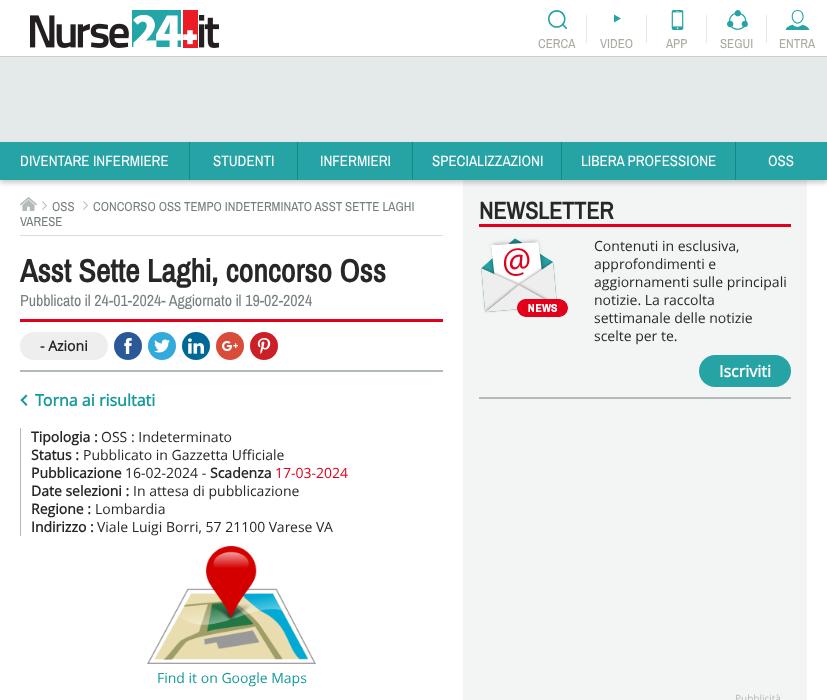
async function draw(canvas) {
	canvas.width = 827;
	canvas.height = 700;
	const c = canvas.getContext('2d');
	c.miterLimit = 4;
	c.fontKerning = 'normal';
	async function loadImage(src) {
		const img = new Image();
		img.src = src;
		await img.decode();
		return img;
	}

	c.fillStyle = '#e4e9e9';
	c.fillRect(0, 0, 827, 700);
	c.fillStyle = '#fff';
	c.fillRect(0, 0, 827, 56);
	c.fillStyle = '#ccc';
	c.fillRect(0, 56, 827, 1);
	c.drawImage(await loadImage('img1.png'), 30, 10, 190, 38);
	c.drawImage(await loadImage('img2.png'), 548, 10, 19, 19);
	c.font = '13px Archivo Narrow';
	c.fillStyle = '#adaa9f';
	c.fillText('CERCA', 538, 48);
	c.fillStyle = '#e4e9e9';
	c.fillRect(586, 15, 1, 28);
	c.fillStyle = '#26a3a5';
	c.beginPath();
	c.moveTo(614, 14.5);
	c.lineTo(621, 18.5);
	c.lineTo(614, 22.5);
	c.closePath();
	c.fill();
	c.fillStyle = '#adaa9f';
	c.fillText('VIDEO', 600, 48);
	c.fillStyle = '#e4e9e9';
	c.fillRect(646, 15, 1, 28);
	c.drawImage(await loadImage('img3.png'), 671, 10, 13, 20);
	c.fillStyle = '#adaa9f';
	c.fillText('APP', 666, 48);
	c.fillStyle = '#e4e9e9';
	c.fillRect(706, 15, 1, 28);
	c.drawImage(await loadImage('img4.png'), 727, 10, 21, 20);
	c.fillStyle = '#adaa9f';
	c.fillText('SEGUI', 720, 48);
	c.fillStyle = '#e4e9e9';
	c.fillRect(766, 15, 1, 28);
	c.drawImage(await loadImage('img5.png'), 785, 10, 25, 20);
	c.fillStyle = '#adaa9f';
	c.fillText('ENTRA', 779, 48);
	c.fillStyle = '#fff';
	c.fillRect(0, 180, 827, 520);
	c.fillStyle = '#f3f4f4';
	c.fillRect(463, 180, 344, 520);
	c.fillStyle = '#00000033';
	c.filter = 'blur(2.5px)';
	c.beginPath();
	c.rect(0, 145, 827, 38);
	c.fill();
	c.filter = 'none';
	c.fillStyle = '#26a3a5';
	c.fillRect(0, 142, 827, 38);
	c.fillStyle = '#168688';
	c.fillRect(189, 142, 1, 38);
	c.font = '15px Archivo Narrow';
	c.fillStyle = '#fff';
	c.fillText('DIVENTARE INFERMIERE', 20, 166);
	c.fillStyle = '#168688';
	c.fillRect(297, 142, 1, 38);
	c.fillStyle = '#fff';
	c.fillText('STUDENTI', 213, 166);
	c.fillStyle = '#168688';
	c.fillRect(412, 142, 1, 38);
	c.fillStyle = '#fff';
	c.fillText('INFERMIERI', 320, 166);
	c.fillStyle = '#168688';
	c.fillRect(561, 142, 1, 38);
	c.fillStyle = '#fff';
	c.fillText('SPECIALIZZAZIONI', 432, 166);
	c.fillStyle = '#168688';
	c.fillRect(735, 142, 1, 38);
	c.fillStyle = '#fff';
	c.fillText('LIBERA PROFESSIONE', 581, 166);
	c.fillText('OSS', 768, 166);
	c.fillStyle = '#dcdcdc';
	c.fillRect(20, 235, 423, 1);
	c.drawImage(await loadImage('img6.png'), 20, 197, 17, 14);
	c.drawImage(await loadImage('img7.png'), 83, 201, 5, 9);
	c.font = '13px Archivo Narrow';
	c.fillStyle = '#767f7f';
	c.fillText('CONCORSO OSS TEMPO INDETERMINATO ASST SETTE LAGHI', 93, 211);
	c.fillText('VARESE', 20, 226);
	c.drawImage(await loadImage('img7.png'), 42, 201, 5, 9);
	c.fillText('OSS', 52, 211);
	c.font = 'bold 32px Archivo Narrow';
	c.fillStyle = '#272727';
	c.fillText('Asst Sette Laghi, concorso Oss', 20, 282);
	c.fillStyle = '#e2001a';
	c.fillRect(20, 319, 423, 3);
	c.font = '16px Archivo Narrow';
	c.fillStyle = '#767f7f';
	c.fillText('Pubblicato il 24-01-2024- Aggiornato il 19-02-2024', 20, 306);
	c.fillStyle = '#b3baba';
	c.fillRect(20, 370, 423, 2);
	c.fillStyle = '#eee';
	c.beginPath();
	c.roundRect(20, 332, 88, 28, 14);
	c.fill();
	c.font = 'bold 14px Open Sans';
	c.fillStyle = '#272727';
	c.fillText('- Azioni', 40, 351);
	c.fillStyle = '#2b5997';
	c.beginPath();
	c.arc(128, 346, 14, 0, 2 * Math.PI);
	c.fill();
	c.drawImage(await loadImage('img8.png'), 124, 338, 8, 16);
	c.fillStyle = '#32aadc';
	c.beginPath();
	c.arc(162, 346, 14, 0, 2 * Math.PI);
	c.fill();
	c.drawImage(await loadImage('img9.png'), 154, 339, 16, 14);
	c.fillStyle = '#006897';
	c.beginPath();
	c.arc(196, 346, 14, 0, 2 * Math.PI);
	c.fill();
	c.drawImage(await loadImage('img10.png'), 188, 338, 16, 16);
	c.fillStyle = '#d94c3a';
	c.beginPath();
	c.arc(230, 346, 14, 0, 2 * Math.PI);
	c.fill();
	c.drawImage(await loadImage('img11.png'), 222, 340, 16, 12);
	c.fillStyle = '#cb2027';
	c.beginPath();
	c.arc(264, 346, 14, 0, 2 * Math.PI);
	c.fill();
	c.drawImage(await loadImage('img12.png'), 257, 338, 14, 16);
	c.fillStyle = '#179a9c';
	c.beginPath();
	c.moveTo(27.5, 404.5);
	c.lineTo(26, 406);
	c.lineTo(20.5, 400);
	c.lineTo(22, 399);
	c.closePath();
	c.fill();
	c.beginPath();
	c.moveTo(27.5, 396);
	c.lineTo(22, 401.5);
	c.lineTo(20.5, 400);
	c.lineTo(26, 394.5);
	c.closePath();
	c.fill();
	c.font = 'bold 16px Open Sans';
	c.fillText('Torna ai risultati', 35, 406);
	c.fillStyle = '#b3baba';
	c.fillRect(20, 428, 1, 108);
	c.font = 'bold 14px Open Sans';
	c.fillStyle = '#272727';
	c.fillText('Tipologia :', 31, 442);
	c.font = '14px Open Sans';
	c.fillText('OSS : Indeterminato', 101, 442);
	c.font = 'bold 14px Open Sans';
	c.fillText('Status :', 31, 460);
	c.font = '14px Open Sans';
	c.fillText('Pubblicato in Gazzetta Ufficiale', 83, 460);
	c.font = 'bold 14px Open Sans';
	c.fillText('Pubblicazione', 31, 478);
	c.font = '14px Open Sans';
	c.fillText('16-02-2024 -', 125, 478);
	c.font = 'bold 14px Open Sans';
	c.fillText('Scadenza', 210, 478);
	c.font = '14px Open Sans';
	c.fillStyle = '#e2001a';
	c.fillText('17-03-2024', 275, 478);
	c.font = 'bold 14px Open Sans';
	c.fillStyle = '#272727';
	c.fillText('Date selezioni :', 31, 496);
	c.font = '14px Open Sans';
	c.fillText('In attesa di pubblicazione', 133, 496);
	c.font = 'bold 14px Open Sans';
	c.fillText('Regione :', 31, 514);
	c.font = '14px Open Sans';
	c.fillText('Lombardia', 95, 514);
	c.font = 'bold 14px Open Sans';
	c.fillText('Indirizzo :', 31, 532);
	c.font = '14px Open Sans';
	c.fillText('Viale Luigi Borri, 57 21100 Varese VA', 97, 532);
	c.drawImage(await loadImage('img13.png'), 147, 546, 169, 118);
	c.fillStyle = '#179a9c';
	c.fillText('Find it on Google Maps', 157, 683);
	c.fillStyle = '#e2001a';
	c.fillRect(479, 224, 312, 3);
	c.font = 'bold 24px Archivo Narrow';
	c.fillStyle = '#272727';
	c.fillText('NEWSLETTER', 479, 219);
	c.drawImage(await loadImage('img14.png'), 481, 238, 87, 79);
	c.font = '14px Open Sans';
	for (const [text, x, y] of [
		['Contenuti in esclusiva,', 594, 251],
		['approfondimenti e', 594, 269],
		['aggiornamenti sulle principali', 594, 287],
		['notizie. La raccolta', 594, 305],
		['settimanale delle notizie', 594, 323],
		['scelte per te.', 594, 341],
	]) {
		c.fillText(text, x, y);
	}
	c.fillStyle = '#26a3a5';
	c.beginPath();
	c.roundRect(699, 355, 92, 32, 16);
	c.fill();
	c.font = 'bold 16px Open Sans';
	c.fillStyle = '#fff';
	c.fillText('Iscriviti', 719, 377);
	c.fillStyle = '#b3baba';
	c.fillRect(479, 397, 312, 2);
	c.font = '10px Open Sans';
	c.fillText('Pubblicità', 735, 702);
}

draw(document.querySelector('canvas'));
